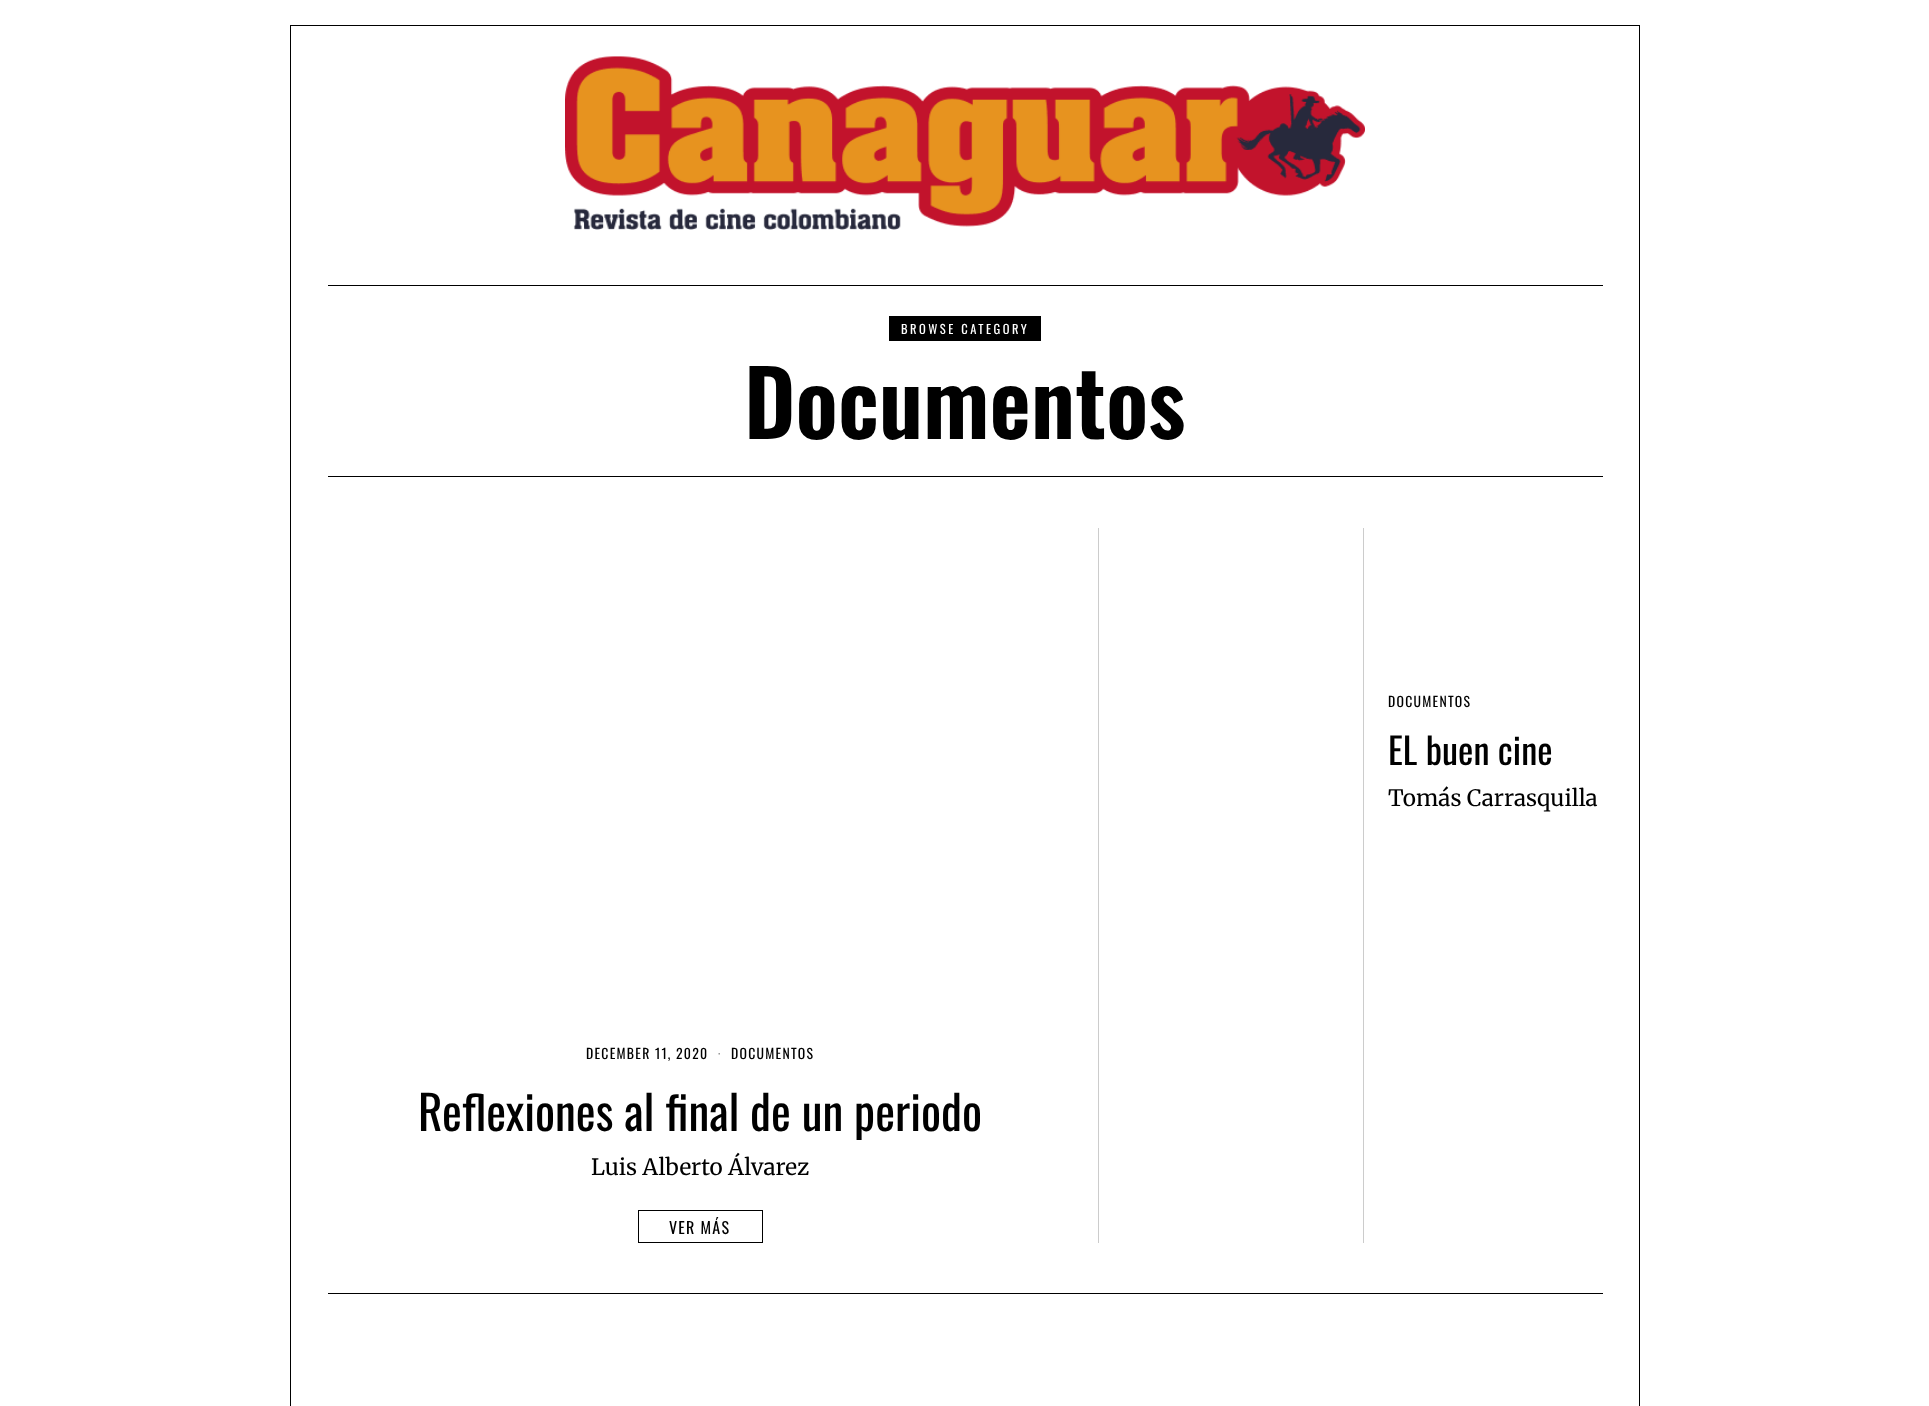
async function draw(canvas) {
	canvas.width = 1929;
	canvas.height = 1406;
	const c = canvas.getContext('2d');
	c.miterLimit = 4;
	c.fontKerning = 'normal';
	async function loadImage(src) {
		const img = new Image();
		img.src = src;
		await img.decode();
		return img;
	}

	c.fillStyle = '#fff';
	c.fillRect(0, 0, 1929, 1406);
	c.strokeStyle = '#000';
	c.strokeRect(290.5, 25.5, 1349, 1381);
	c.drawImage(await loadImage('img1.png'), 565, 56, 800, 174);
	for (const [x, y, w, h, color] of [
		[328, 285, 1275, 1, '#000'],
		[328, 476, 1275, 1, '#000'],
		[889, 316, 152, 25, '#000'],
	]) {
		c.fillStyle = color;
		c.fillRect(x, y, w, h);
	}
	c.letterSpacing = '2.5px';
	c.font = '12.5px Oswald';
	c.fillStyle = '#fff';
	c.fillText('BROWSE CATEGORY', 901, 334);
	c.letterSpacing = '0px';
	c.font = '600 90px Oswald';
	c.fillStyle = '#000';
	c.fillText('Documentos', 744, 439);
	for (const [x, y, w, h, color] of [
		[328, 1293, 1275, 1, '#000'],
		[1098, 528, 1, 715, '#ccc'],
		[1363, 528, 1, 715, '#ccc'],
	]) {
		c.fillStyle = color;
		c.fillRect(x, y, w, h);
	}
	c.letterSpacing = '1.25px';
	c.font = '13.75px Oswald';
	c.fillStyle = '#000';
	c.fillText('DOCUMENTOS', 1388, 707);
	c.letterSpacing = '0px';
	c.font = '36.5px Oswald';
	c.fillText('EL buen cine', 1388, 765);
	c.font = '22.5px Merriweather';
	c.fillText('Tomás Carrasquilla', 1388, 806);
	c.letterSpacing = '1.25px';
	c.font = '13.75px Oswald';
	c.fillText('DECEMBER 11, 2020', 586, 1059);
	c.fillStyle = '#999';
	c.fillText('·', 718, 1059);
	c.fillStyle = '#000';
	c.fillText('DOCUMENTOS', 731, 1059);
	c.letterSpacing = '0px';
	c.font = '47.25px Oswald';
	c.fillText('Reflexiones al final de un periodo', 418, 1131);
	c.font = '22.5px Merriweather';
	c.fillText('Luis Alberto Álvarez', 591, 1175);
	c.strokeRect(638.5, 1210.5, 124, 32);
	c.letterSpacing = '1.25px';
	c.font = '16px Oswald';
	c.fillText('VER MÁS', 669, 1234);
}

draw(document.querySelector('canvas'));
